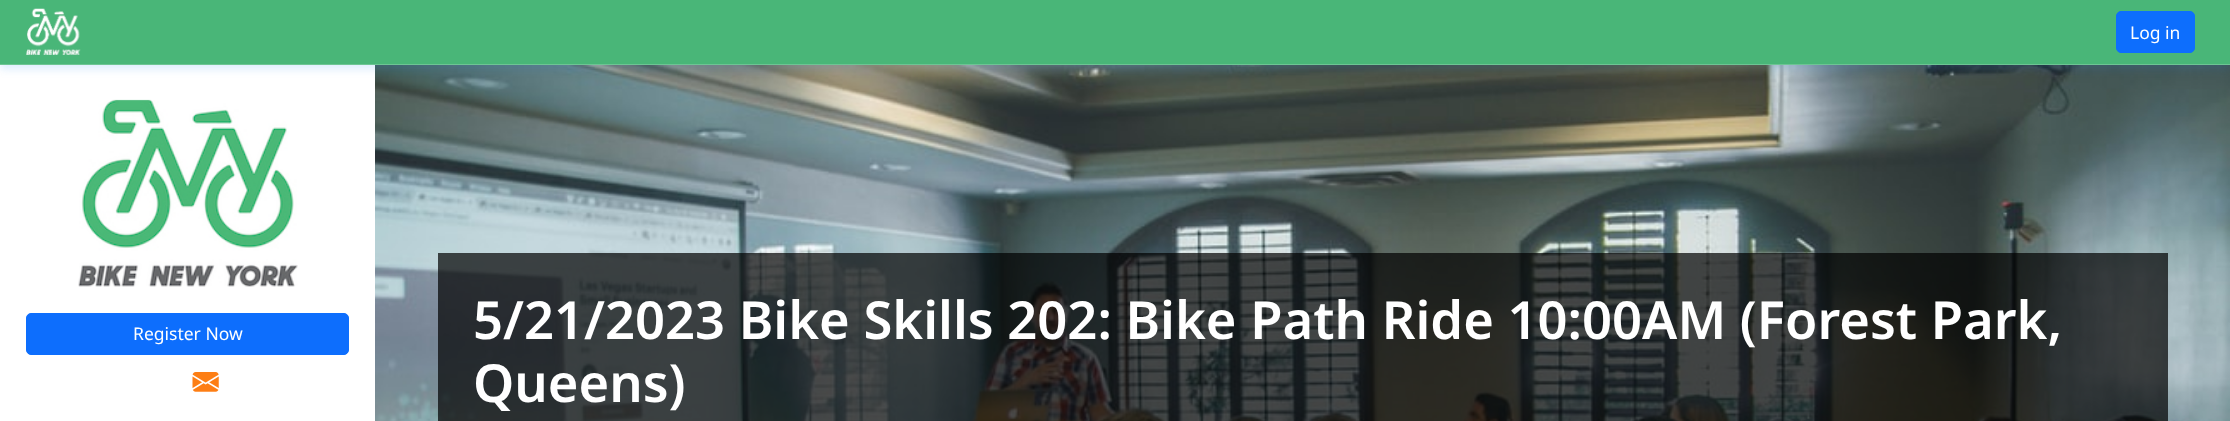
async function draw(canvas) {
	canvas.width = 2230;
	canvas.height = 421;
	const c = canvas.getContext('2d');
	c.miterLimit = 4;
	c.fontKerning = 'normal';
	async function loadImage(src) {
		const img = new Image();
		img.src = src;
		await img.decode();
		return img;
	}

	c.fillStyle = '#fff';
	c.fillRect(0, 0, 2230, 421);
	c.drawImage(await loadImage('img4.png'), 375, 65, 1855, 356);
	c.fillStyle = '#2186eb29';
	c.filter = 'blur(4px)';
	c.beginPath();
	c.rect(0, 4, 2230, 65);
	c.fill();
	c.filter = 'none';
	c.fillStyle = '#49b678';
	c.fillRect(0, 0, 2230, 64);
	c.fillStyle = '#6dc593';
	c.fillRect(0, 64, 2230, 1);
	c.drawImage(await loadImage('img1.png'), 26, 8, 55, 47);
	c.fillStyle = '#0d6efd';
	c.beginPath();
	c.roundRect(2116.5, 11.5, 78, 41, 4.5);
	c.fill();
	c.strokeStyle = '#0d6efd';
	c.stroke();
	c.font = '17.5px Noto Sans';
	c.fillStyle = '#fff';
	c.fillText('Log in', 2130, 39);
	c.drawImage(await loadImage('img2.png'), 78, 99, 220, 188);
	c.fillStyle = '#0d6efd';
	c.beginPath();
	c.roundRect(26.5, 313.5, 322, 41, 4.5);
	c.fill();
	c.stroke();
	c.fillStyle = '#fff';
	c.fillText('Register Now', 133, 340);
	c.drawImage(await loadImage('img3.png'), 192, 372, 27, 20);
	c.fillStyle = '#000000b3';
	c.fillRect(438, 253, 1730, 168);
	c.font = '600 52.5px Noto Sans';
	c.fillStyle = '#fff';
	c.fillText('5/21/2023 Bike Skills 202: Bike Path Ride 10:00AM (Forest Park,', 473, 339);
	c.fillText('Queens)', 473, 402);
}

draw(document.querySelector('canvas'));
